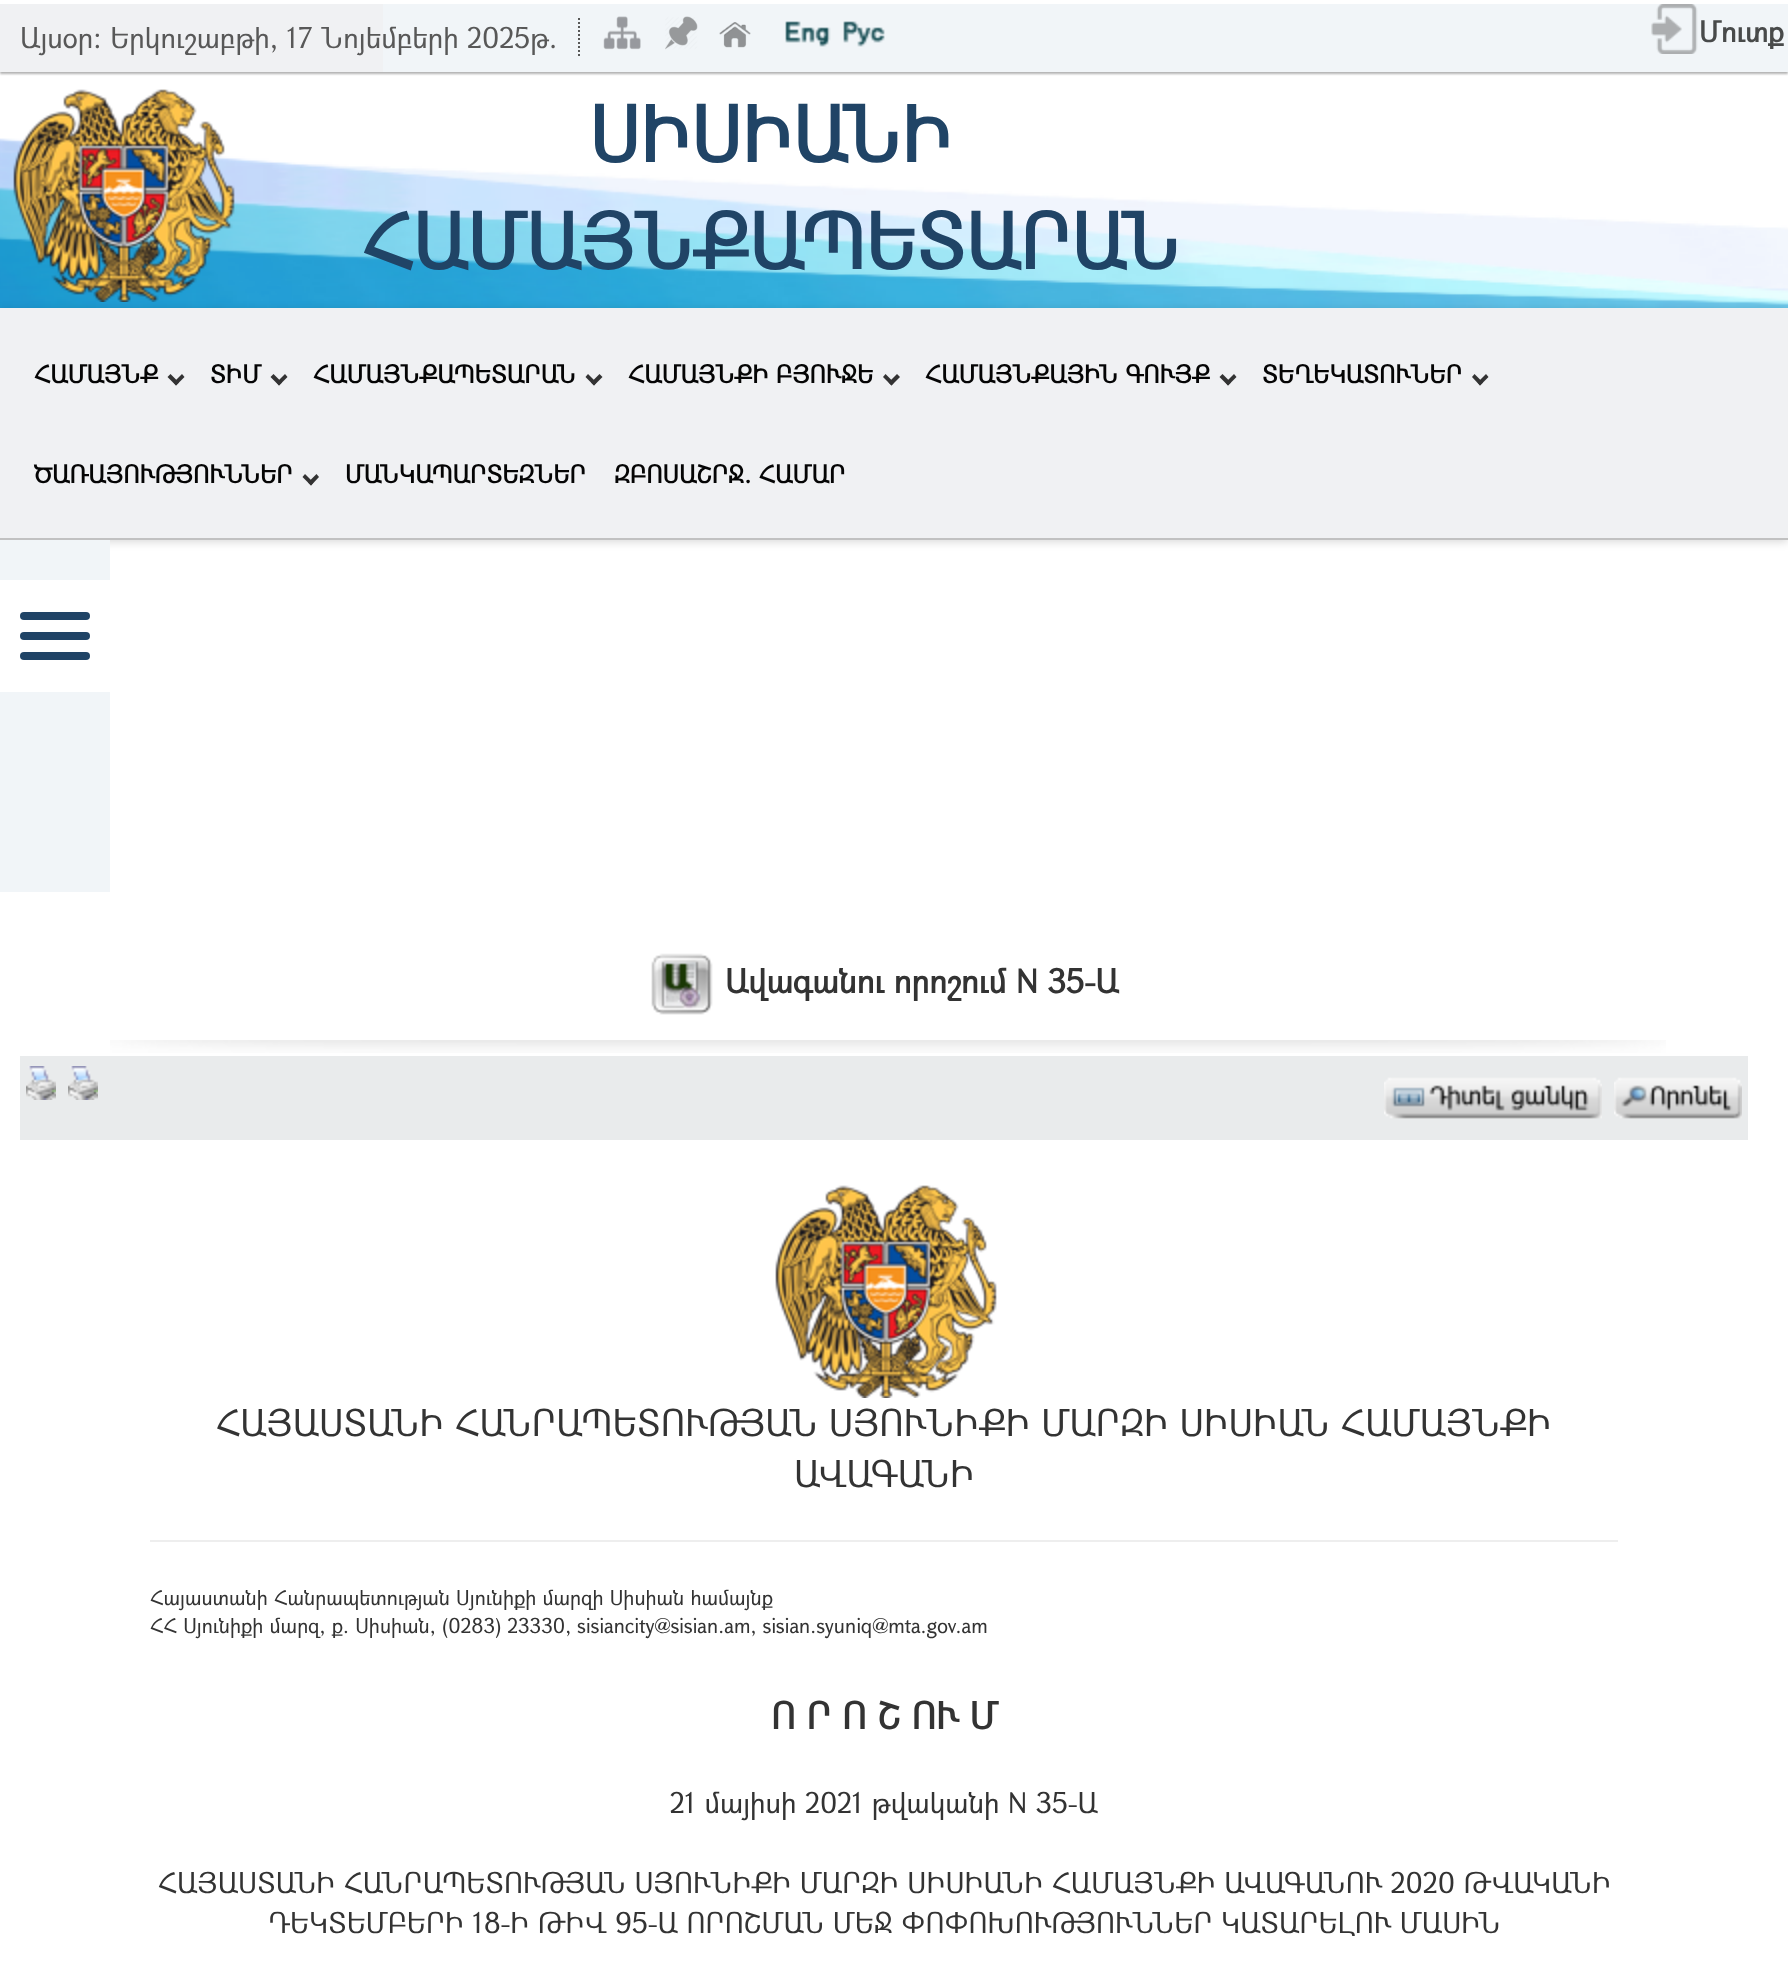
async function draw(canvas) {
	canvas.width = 1788;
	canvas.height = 1965;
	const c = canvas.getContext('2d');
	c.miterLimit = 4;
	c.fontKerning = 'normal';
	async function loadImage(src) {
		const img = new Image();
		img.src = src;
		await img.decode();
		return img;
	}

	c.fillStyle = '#fff';
	c.fillRect(0, 0, 1788, 1965);
	c.fillStyle = '#0000004d';
	c.filter = 'blur(1px)';
	c.beginPath();
	c.rect(0, 6, 1788, 68);
	c.fill();
	c.filter = 'none';
	c.fillStyle = '#f0f1f3';
	c.fillRect(0, 4, 383, 68);
	c.fillStyle = '#f1f5f8';
	c.fillRect(383, 4, 1405, 68);
	c.beginPath();
	c.moveTo(579, 18);
	c.lineTo(579, 58);
	c.strokeStyle = '#585858';
	c.lineWidth = 2;
	c.setLineDash([2, 2]);
	c.stroke();
	c.font = '28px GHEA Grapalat';
	c.fillStyle = '#585858';
	c.fillText('Այսօր: Երկուշաբթի, 17 Նոյեմբերի 2025թ.', 20, 48);
	c.drawImage(await loadImage('img1.png'), 603, 16, 38, 34);
	c.drawImage(await loadImage('img2.png'), 665, 16, 33, 34);
	c.drawImage(await loadImage('img3.png'), 719, 22, 32, 26);
	c.drawImage(await loadImage('img4.png'), 785, 21, 46, 26);
	c.drawImage(await loadImage('img5.png'), 843, 21, 42, 26);
	c.drawImage(await loadImage('img6.png'), 1651, 4, 47, 50);
	c.font = 'bold 28px GHEA Grapalat';
	c.fillStyle = '#484a4a';
	c.fillText('Մուտք', 1699, 42);
	c.drawImage(await loadImage('img7.png'), 0, 138, 1788, 170);
	c.fillStyle = '#02030326';
	c.filter = 'blur(4px)';
	c.beginPath();
	c.rect(0, 310, 1788, 232);
	c.fill();
	c.filter = 'none';
	c.drawImage(await loadImage('img8.png'), 13, 89, 222, 213);
	c.font = 'bold 74.75px GHEA Grapalat';
	c.fillStyle = '#204466';
	c.fillText('ՍԻՍԻԱՆԻ', 589, 162);
	c.fillText('ՀԱՄԱՅՆՔԱՊԵՏԱՐԱՆ', 362, 269);
	c.fillStyle = '#f0f1f3';
	c.fillRect(0, 308, 1788, 230);
	c.fillStyle = '#c1c1c1';
	c.fillRect(0, 538, 1788, 2);
	c.font = 'bold 24px GHEA Grapalat';
	c.fillStyle = '#050505';
	c.fillText('ՀԱՄԱՅՆՔ', 34, 383);
	c.fillStyle = '#333';
	c.beginPath();
	c.moveTo(182, 374);
	c.lineTo(184.5, 377);
	c.lineTo(176, 385.5);
	c.lineTo(173.5, 382.5);
	c.closePath();
	c.fill();
	c.beginPath();
	c.moveTo(170.5, 374);
	c.lineTo(179, 382.5);
	c.lineTo(176, 385.5);
	c.lineTo(167.5, 377);
	c.closePath();
	c.fill();
	c.fillStyle = '#050505';
	c.fillText('ՏԻՄ', 210, 383);
	c.fillStyle = '#333';
	c.beginPath();
	c.moveTo(285, 374);
	c.lineTo(287.5, 377);
	c.lineTo(279, 385.5);
	c.lineTo(276.5, 382.5);
	c.closePath();
	c.fill();
	c.beginPath();
	c.moveTo(273.5, 374);
	c.lineTo(282, 382.5);
	c.lineTo(279, 385.5);
	c.lineTo(270.5, 377);
	c.closePath();
	c.fill();
	c.fillStyle = '#050505';
	c.fillText('ՀԱՄԱՅՆՔԱՊԵՏԱՐԱՆ', 313, 383);
	c.fillStyle = '#333';
	c.beginPath();
	c.moveTo(599.5, 374);
	c.lineTo(602.5, 377);
	c.lineTo(594, 385.5);
	c.lineTo(591, 382.5);
	c.closePath();
	c.fill();
	c.beginPath();
	c.moveTo(588, 374);
	c.lineTo(596.5, 382.5);
	c.lineTo(594, 385.5);
	c.lineTo(585.5, 377);
	c.closePath();
	c.fill();
	c.fillStyle = '#050505';
	c.fillText('ՀԱՄԱՅՆՔԻ ԲՅՈՒՋԵ', 628, 383);
	c.fillStyle = '#333';
	c.beginPath();
	c.moveTo(897, 374);
	c.lineTo(900, 377);
	c.lineTo(891.5, 385.5);
	c.lineTo(888.5, 382.5);
	c.closePath();
	c.fill();
	c.beginPath();
	c.moveTo(885.5, 374);
	c.lineTo(894, 382.5);
	c.lineTo(891.5, 385.5);
	c.lineTo(883, 377);
	c.closePath();
	c.fill();
	c.fillStyle = '#050505';
	c.fillText('ՀԱՄԱՅՆՔԱՅԻՆ ԳՈՒՅՔ', 925, 383);
	c.fillStyle = '#333';
	c.beginPath();
	c.moveTo(1234, 374);
	c.lineTo(1236.5, 377);
	c.lineTo(1228, 385.5);
	c.lineTo(1225.5, 382.5);
	c.closePath();
	c.fill();
	c.beginPath();
	c.moveTo(1222.5, 374);
	c.lineTo(1231, 382.5);
	c.lineTo(1228, 385.5);
	c.lineTo(1219.5, 377);
	c.closePath();
	c.fill();
	c.fillStyle = '#050505';
	c.fillText('ՏԵՂԵԿԱՏՈՒՆԵՐ', 1262, 383);
	c.fillStyle = '#333';
	c.beginPath();
	c.moveTo(1486, 374);
	c.lineTo(1488.5, 377);
	c.lineTo(1480, 385.5);
	c.lineTo(1477.5, 382.5);
	c.closePath();
	c.fill();
	c.beginPath();
	c.moveTo(1474.5, 374);
	c.lineTo(1483, 382.5);
	c.lineTo(1480, 385.5);
	c.lineTo(1472, 377);
	c.closePath();
	c.fill();
	c.fillStyle = '#050505';
	c.fillText('ԾԱՌԱՅՈՒԹՅՈՒՆՆԵՐ', 34, 483);
	c.fillStyle = '#333';
	c.beginPath();
	c.moveTo(316.5, 474);
	c.lineTo(319, 477);
	c.lineTo(311, 485.5);
	c.lineTo(308, 482.5);
	c.closePath();
	c.fill();
	c.beginPath();
	c.moveTo(305, 474);
	c.lineTo(313.5, 482.5);
	c.lineTo(311, 485.5);
	c.lineTo(302.5, 477);
	c.closePath();
	c.fill();
	c.fillStyle = '#050505';
	c.fillText('ՄԱՆԿԱՊԱՐՏԵԶՆԵՐ', 345, 483);
	c.fillText('ԶԲՈՍԱՇՐՋ. ՀԱՄԱՐ', 614, 483);
	c.fillStyle = '#f1f5f8';
	c.fillRect(0, 540, 110, 352);
	c.fillStyle = '#fff';
	c.fillRect(0, 580, 110, 112);
	c.fillStyle = '#204466';
	c.beginPath();
	c.roundRect(20, 632, 70, 8, 4);
	c.fill();
	c.beginPath();
	c.roundRect(20, 612, 70, 8, 4);
	c.fill();
	c.beginPath();
	c.roundRect(20, 652, 70, 8, 4);
	c.fill();
	c.drawImage(await loadImage('img9.png'), 110, 1040, 1556, 13);
	c.drawImage(await loadImage('img10.png'), 651, 953, 62, 62);
	c.font = 'bold 32px GHEA Grapalat';
	c.fillStyle = '#333';
	c.fillText('Ավագանու որոշում N 35-Ա', 725, 993);
	c.fillStyle = '#e9ebec';
	c.fillRect(20, 1056, 1728, 84);
	c.drawImage(await loadImage('img11.png'), 26, 1066, 30, 34);
	c.drawImage(await loadImage('img11.png'), 68, 1066, 30, 34);
	c.drawImage(await loadImage('img12.png'), 1384, 1077, 218, 42);
	c.drawImage(await loadImage('img13.png'), 1614, 1077, 128, 42);
	c.drawImage(await loadImage('img14.png'), 775, 1185, 222, 213);
	c.font = '36px GHEA Grapalat';
	c.fillStyle = '#333';
	c.fillText('ՀԱՅԱՍՏԱՆԻ ՀԱՆՐԱՊԵՏՈՒԹՅԱՆ ՍՅՈՒՆԻՔԻ ՄԱՐԶԻ ՍԻՍԻԱՆ ՀԱՄԱՅՆՔԻ', 216, 1436);
	c.fillText('ԱՎԱԳԱՆԻ', 794, 1487);
	c.fillStyle = '#eee';
	c.fillRect(150, 1540, 1468, 2);
	c.font = '20px GHEA Grapalat';
	c.fillStyle = '#333';
	c.fillText('Հայաստանի Հանրապետության Սյունիքի մարզի Սիսիան համայնք', 150, 1605);
	c.fillText('ՀՀ Սյունիքի մարզ, ք. Սիսիան, (0283) 23330, sisiancity@sisian.am, sisian.syuniq@mta.gov.am', 150, 1633);
	c.font = 'bold 36px GHEA Grapalat';
	c.fillText('Ո Ր Ո Շ ՈՒ Մ', 771, 1729);
	c.font = '28px GHEA Grapalat';
	for (const [text, x, y] of [
		['21 մայիսի 2021 թվականի N 35-Ա', 670, 1813],
		['ՀԱՅԱՍՏԱՆԻ ՀԱՆՐԱՊԵՏՈՒԹՅԱՆ ՍՅՈՒՆԻՔԻ ՄԱՐԶԻ ՍԻՍԻԱՆԻ ՀԱՄԱՅՆՔԻ ԱՎԱԳԱՆՈՒ 2020 ԹՎԱԿԱՆԻ', 158, 1893],
		['ԴԵԿՏԵՄԲԵՐԻ 18-Ի ԹԻՎ 95-Ա ՈՐՈՇՄԱՆ ՄԵՋ ՓՈՓՈԽՈՒԹՅՈՒՆՆԵՐ ԿԱՏԱՐԵԼՈՒ ՄԱՍԻՆ', 268, 1933],
	]) {
		c.fillText(text, x, y);
	}
}

draw(document.querySelector('canvas'));
